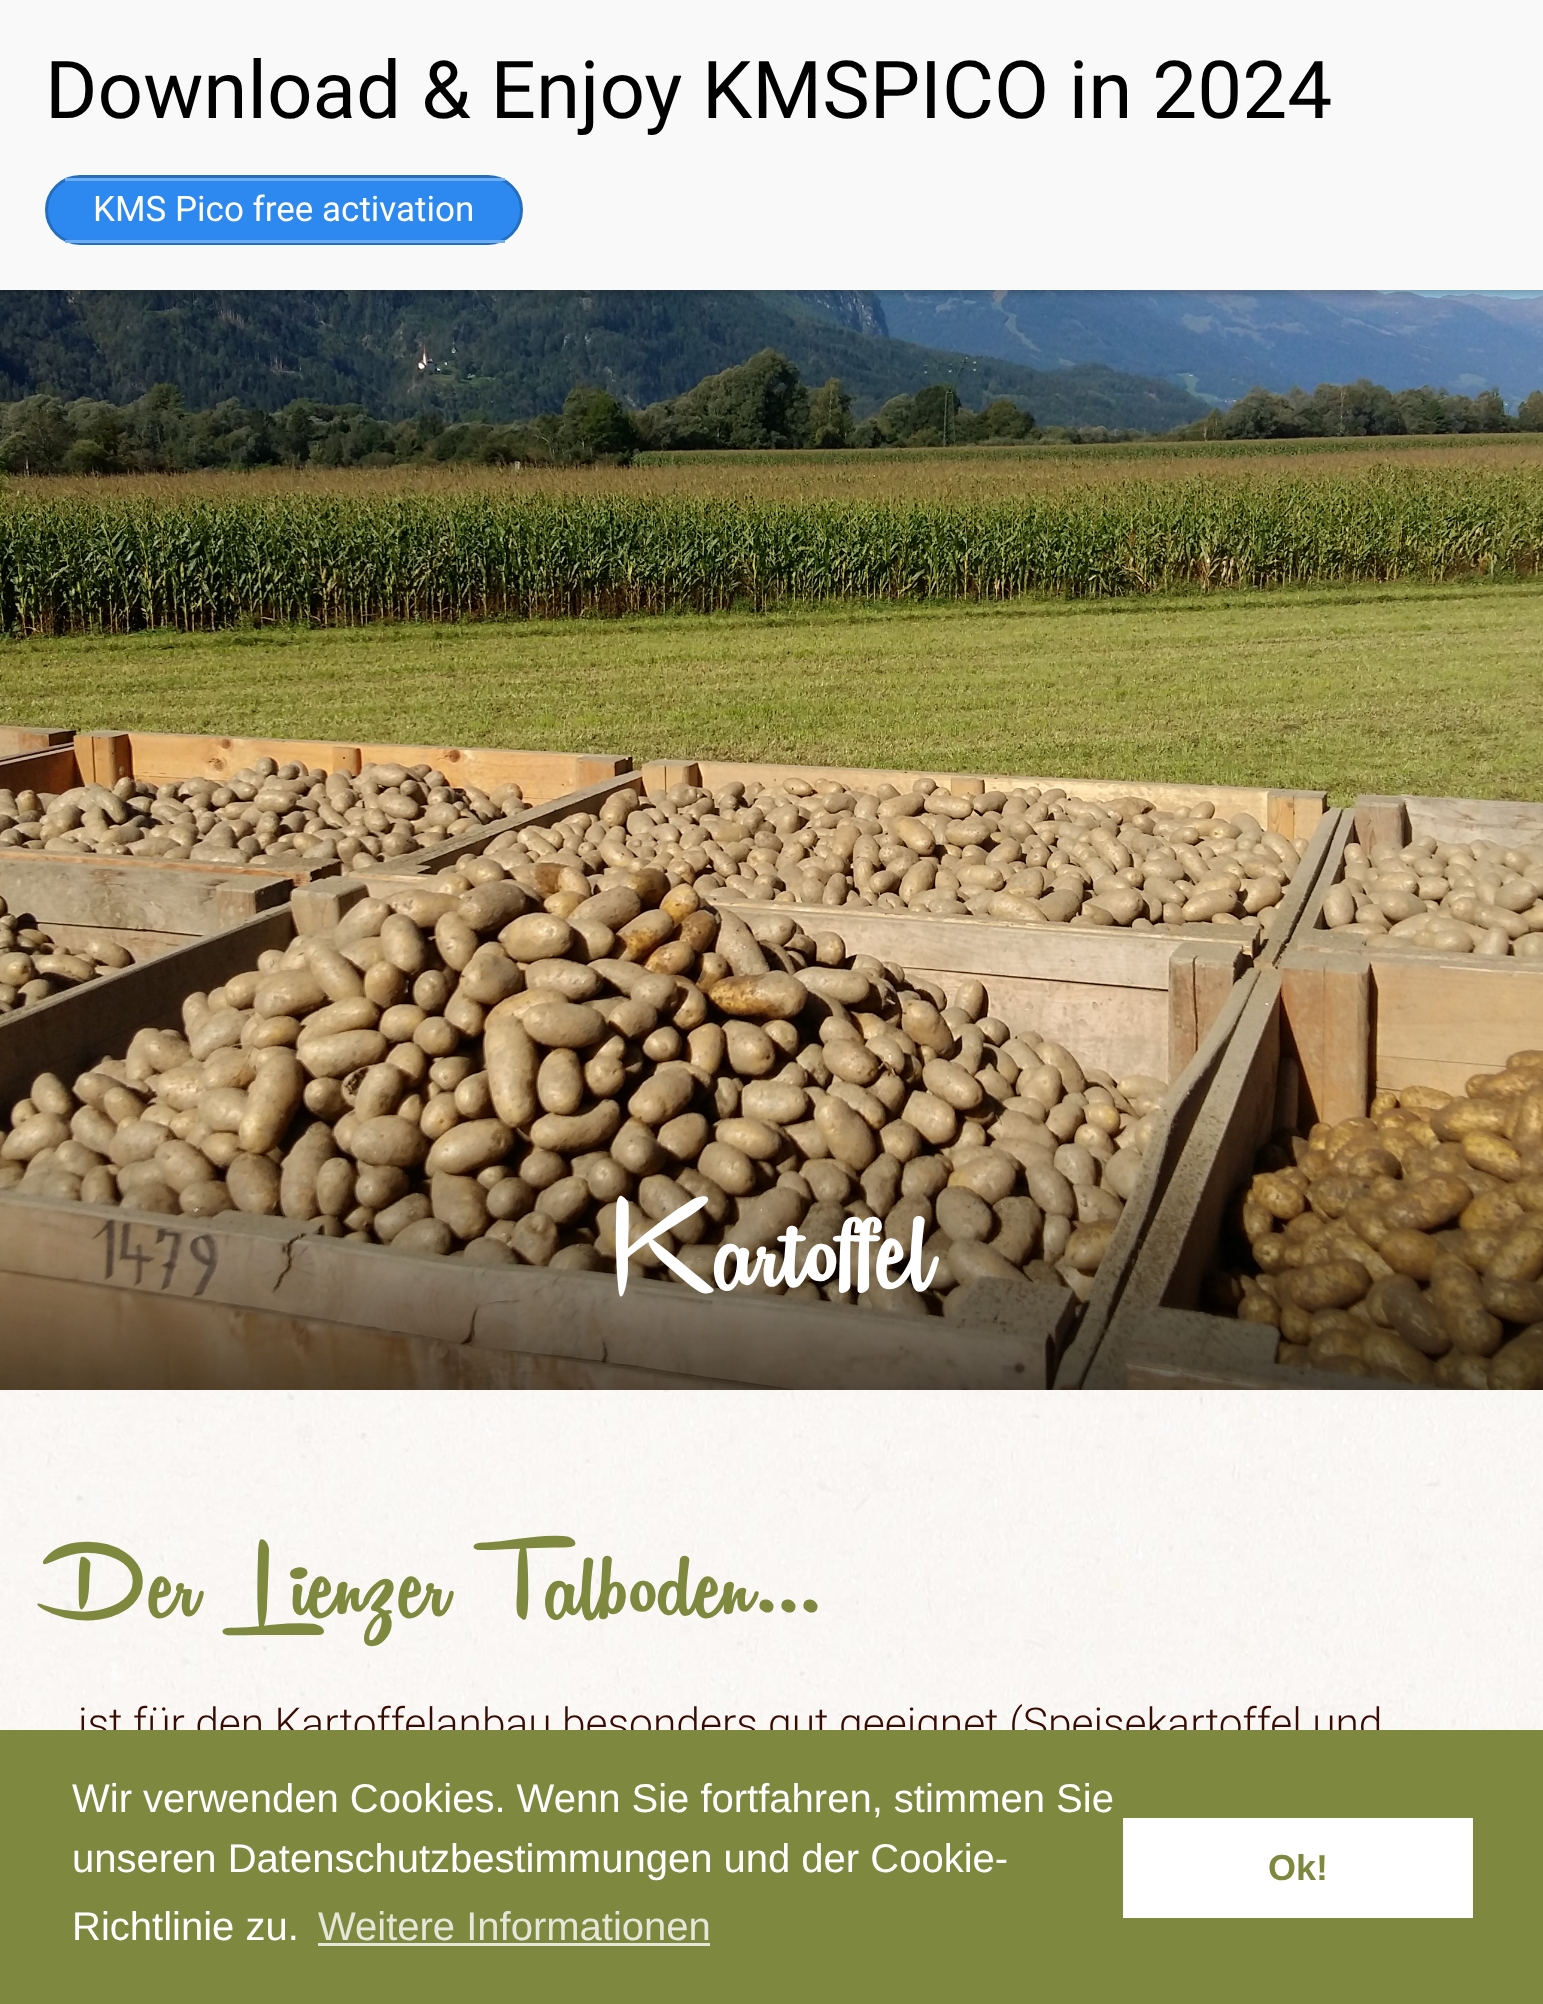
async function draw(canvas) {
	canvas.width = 1543;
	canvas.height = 2004;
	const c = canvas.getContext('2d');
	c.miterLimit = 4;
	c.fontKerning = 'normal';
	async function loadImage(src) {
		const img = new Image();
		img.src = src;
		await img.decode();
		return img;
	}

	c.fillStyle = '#fff';
	c.fillRect(0, 0, 1543, 2004);
	c.drawImage(await loadImage('img1.png'), 0, 1390, 1543, 340);
	c.drawImage(await loadImage('img2.png'), 0, 290, 1543, 1100);
	c.fillStyle = '#0202023b';
	c.filter = 'blur(4px)';
	c.beginPath();
	c.rect(3, 3, 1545, 290);
	c.fill();
	c.filter = 'none';
	c.fillStyle = '#f9f9f9';
	c.fillRect(0, 0, 1543, 290);
	c.font = '80px Roboto';
	c.fillStyle = '#000';
	c.fillText('Download & Enjoy KMSPICO in 2024', 45, 118);
	c.fillStyle = '#2d89ef';
	c.beginPath();
	c.roundRect(46.5, 176.5, 475, 67, 33.5);
	c.fill();
	c.strokeStyle = '#246ec0';
	c.lineWidth = 3;
	c.stroke();
	c.fillStyle = '#6cadf4';
	c.fillRect(65, 178, 440, 3);
	c.fillRect(65, 240, 440, 3);
	c.font = '35px Roboto';
	c.fillStyle = '#fff';
	c.fillText('KMS Pico free activation', 93, 221);
	c.font = '150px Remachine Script';
	c.fillText('Kartoffel', 612, 1285);
	c.font = '125px Remachine Script';
	c.fillStyle = '#7e893f';
	c.fillText('Der Lienzer Talboden...', 38, 1615);
	c.font = '300 42.5px Roboto';
	c.fillStyle = '#360c03';
	c.fillText('ist für den Kartoffelanbau besonders gut geeignet (Speisekartoffel und', 78, 1738);
	c.fillStyle = '#7e893f';
	c.fillRect(0, 1730, 1543, 274);
	c.font = '40px Liberation Sans';
	c.fillStyle = '#fff';
	for (const [text, x, y] of [
		['Wir verwenden Cookies. Wenn Sie fortfahren, stimmen Sie', 72, 1812],
		['unseren Datenschutzbestimmungen und der Cookie-', 72, 1872],
		['Richtlinie zu.', 72, 1940],
	]) {
		c.fillText(text, x, y);
	}
	c.fillStyle = '#e5e7d9';
	c.fillText('Weitere Informationen', 318, 1940);
	c.fillRect(318, 1943, 392, 3);
	c.fillStyle = '#fff';
	c.fillRect(1123, 1818, 350, 100);
	c.font = 'bold 36px Liberation Sans';
	c.fillStyle = '#7e893f';
	c.fillText('Ok!', 1268, 1880);
}

draw(document.querySelector('canvas'));
